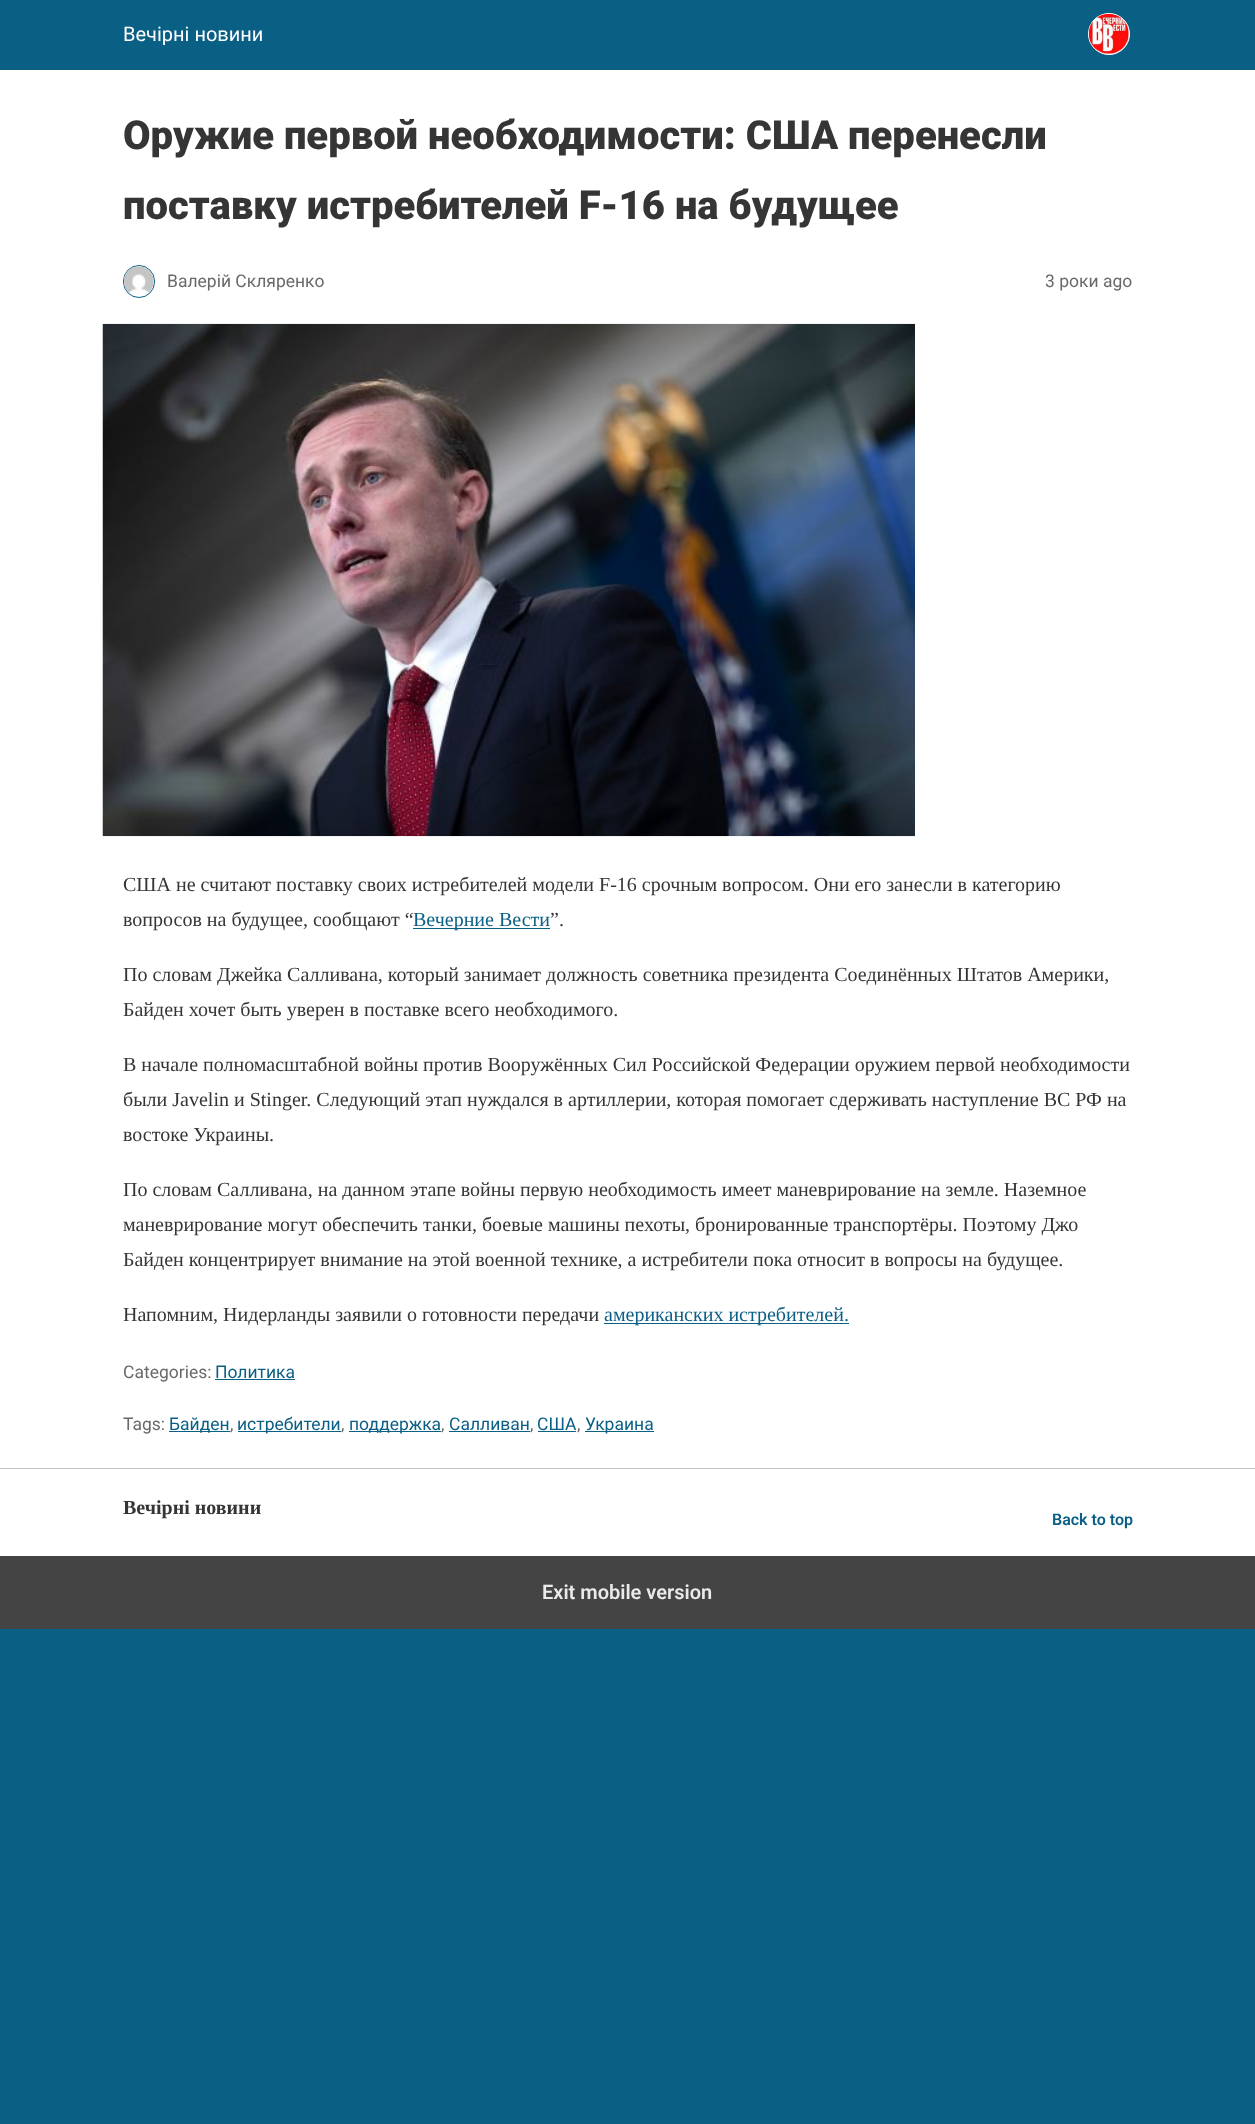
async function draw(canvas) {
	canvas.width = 1255;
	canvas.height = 2124;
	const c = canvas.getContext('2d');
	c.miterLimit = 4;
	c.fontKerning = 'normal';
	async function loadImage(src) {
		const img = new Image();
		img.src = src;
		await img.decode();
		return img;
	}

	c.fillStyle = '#0a5f85';
	c.fillRect(0, 0, 1255, 2124);
	c.fillStyle = '#fff';
	c.fillRect(0, 70, 1255, 1486);
	c.font = '20px Roboto';
	c.fillText('Вечірні новини', 123, 41);
	c.beginPath();
	c.arc(1109, 34, 20.5, 0, 2 * Math.PI);
	c.fill();
	c.strokeStyle = '#fff';
	c.stroke();
	c.drawImage(await loadImage('img1.png'), 1088, 13, 41, 41);
	c.font = '900 40px Roboto';
	c.fillStyle = '#353535';
	c.fillText('Оружие первой необходимости: США перенесли', 123, 149);
	c.fillText('поставку истребителей F-16 на будущее', 123, 219);
	c.beginPath();
	c.roundRect(123.5, 265.5, 31, 32, 15.5);
	c.strokeStyle = '#0a5f85';
	c.stroke();
	c.drawImage(await loadImage('img2.png'), 123, 266, 31, 29);
	c.font = '17.5px Roboto';
	c.fillStyle = '#696969';
	c.fillText('Валерій Скляренко', 167, 287);
	c.fillText('3 роки ago', 1045, 287);
	c.drawImage(await loadImage('img3.png'), 102, 323, 813, 514);
	c.font = '20px Liberation Serif';
	c.fillStyle = '#353535';
	c.fillText('США не считают поставку своих истребителей модели F-16 срочным вопросом. Они его занесли в категорию', 123, 891);
	c.fillText('вопросов на будущее, сообщают “', 123, 926);
	c.fillStyle = '#0a5f85';
	c.fillRect(413, 928, 137, 1);
	c.fillText('Вечерние Вести', 413, 926);
	c.fillStyle = '#353535';
	for (const [text, x, y] of [
		['”.', 550, 926],
		['По словам Джейка Салливана, который занимает должность советника президента Соединённых Штатов Америки,', 123, 981],
		['Байден хочет быть уверен в поставке всего необходимого.', 123, 1016],
		['В начале полномасштабной войны против Вооружённых Сил Российской Федерации оружием первой необходимости', 123, 1071],
		['были Javelin и Stinger. Следующий этап нуждался в артиллерии, которая помогает сдерживать наступление ВС РФ на', 123, 1106],
		['востоке Украины.', 123, 1141],
		['По словам Салливана, на данном этапе войны первую необходимость имеет маневрирование на земле. Наземное', 123, 1196],
		['маневрирование могут обеспечить танки, боевые машины пехоты, бронированные транспортёры. Поэтому Джо', 123, 1231],
		['Байден концентрирует внимание на этой военной технике, а истребители пока относит в вопросы на будущее.', 123, 1266],
		['Напомним, Нидерланды заявили о готовности передачи', 123, 1321],
	]) {
		c.fillText(text, x, y);
	}
	c.fillStyle = '#0a5f85';
	c.fillRect(604, 1323, 245, 1);
	c.fillText('американских истребителей.', 604, 1321);
	c.font = '17.5px Roboto';
	c.fillStyle = '#696969';
	c.fillText('Categories:', 123, 1378);
	c.fillStyle = '#0a5f85';
	c.fillText('Политика', 215, 1378);
	c.fillRect(215, 1379, 80, 1);
	c.fillStyle = '#696969';
	c.fillText('Tags:', 123, 1430);
	c.fillStyle = '#0a5f85';
	c.fillRect(169, 1431, 61, 1);
	c.fillText('Байден', 169, 1430);
	c.fillStyle = '#696969';
	c.fillText(',', 230, 1430);
	c.fillStyle = '#0a5f85';
	c.fillRect(238, 1431, 103, 1);
	c.fillText('истребители', 237, 1430);
	c.fillStyle = '#696969';
	c.fillText(',', 341, 1430);
	c.fillStyle = '#0a5f85';
	c.fillRect(349, 1431, 92, 1);
	c.fillText('поддержка', 349, 1430);
	c.fillStyle = '#696969';
	c.fillText(',', 441, 1430);
	c.fillStyle = '#0a5f85';
	c.fillText('Салливан', 449, 1430);
	c.fillRect(449, 1431, 81, 1);
	c.fillStyle = '#696969';
	c.fillText(',', 530, 1430);
	c.fillStyle = '#0a5f85';
	c.fillText('США', 537, 1430);
	c.fillRect(538, 1431, 38, 1);
	c.fillStyle = '#696969';
	c.fillText(',', 577, 1430);
	c.fillStyle = '#0a5f85';
	c.fillRect(585, 1431, 69, 1);
	c.fillText('Украина', 585, 1430);
	c.fillStyle = '#c2c2c2';
	c.fillRect(0, 1468, 1255, 1);
	c.font = 'bold 20px Liberation Serif';
	c.fillStyle = '#353535';
	c.fillText('Вечірні новини', 123, 1514);
	c.font = '600 16px Roboto';
	c.fillStyle = '#0a5f85';
	c.fillText('Back to top', 1052, 1525);
	c.fillStyle = '#444';
	c.fillRect(0, 1556, 1255, 73);
	c.font = '600 20px Roboto';
	c.fillStyle = '#eaeaea';
	c.fillText('Exit mobile version', 542, 1599);
}

draw(document.querySelector('canvas'));
